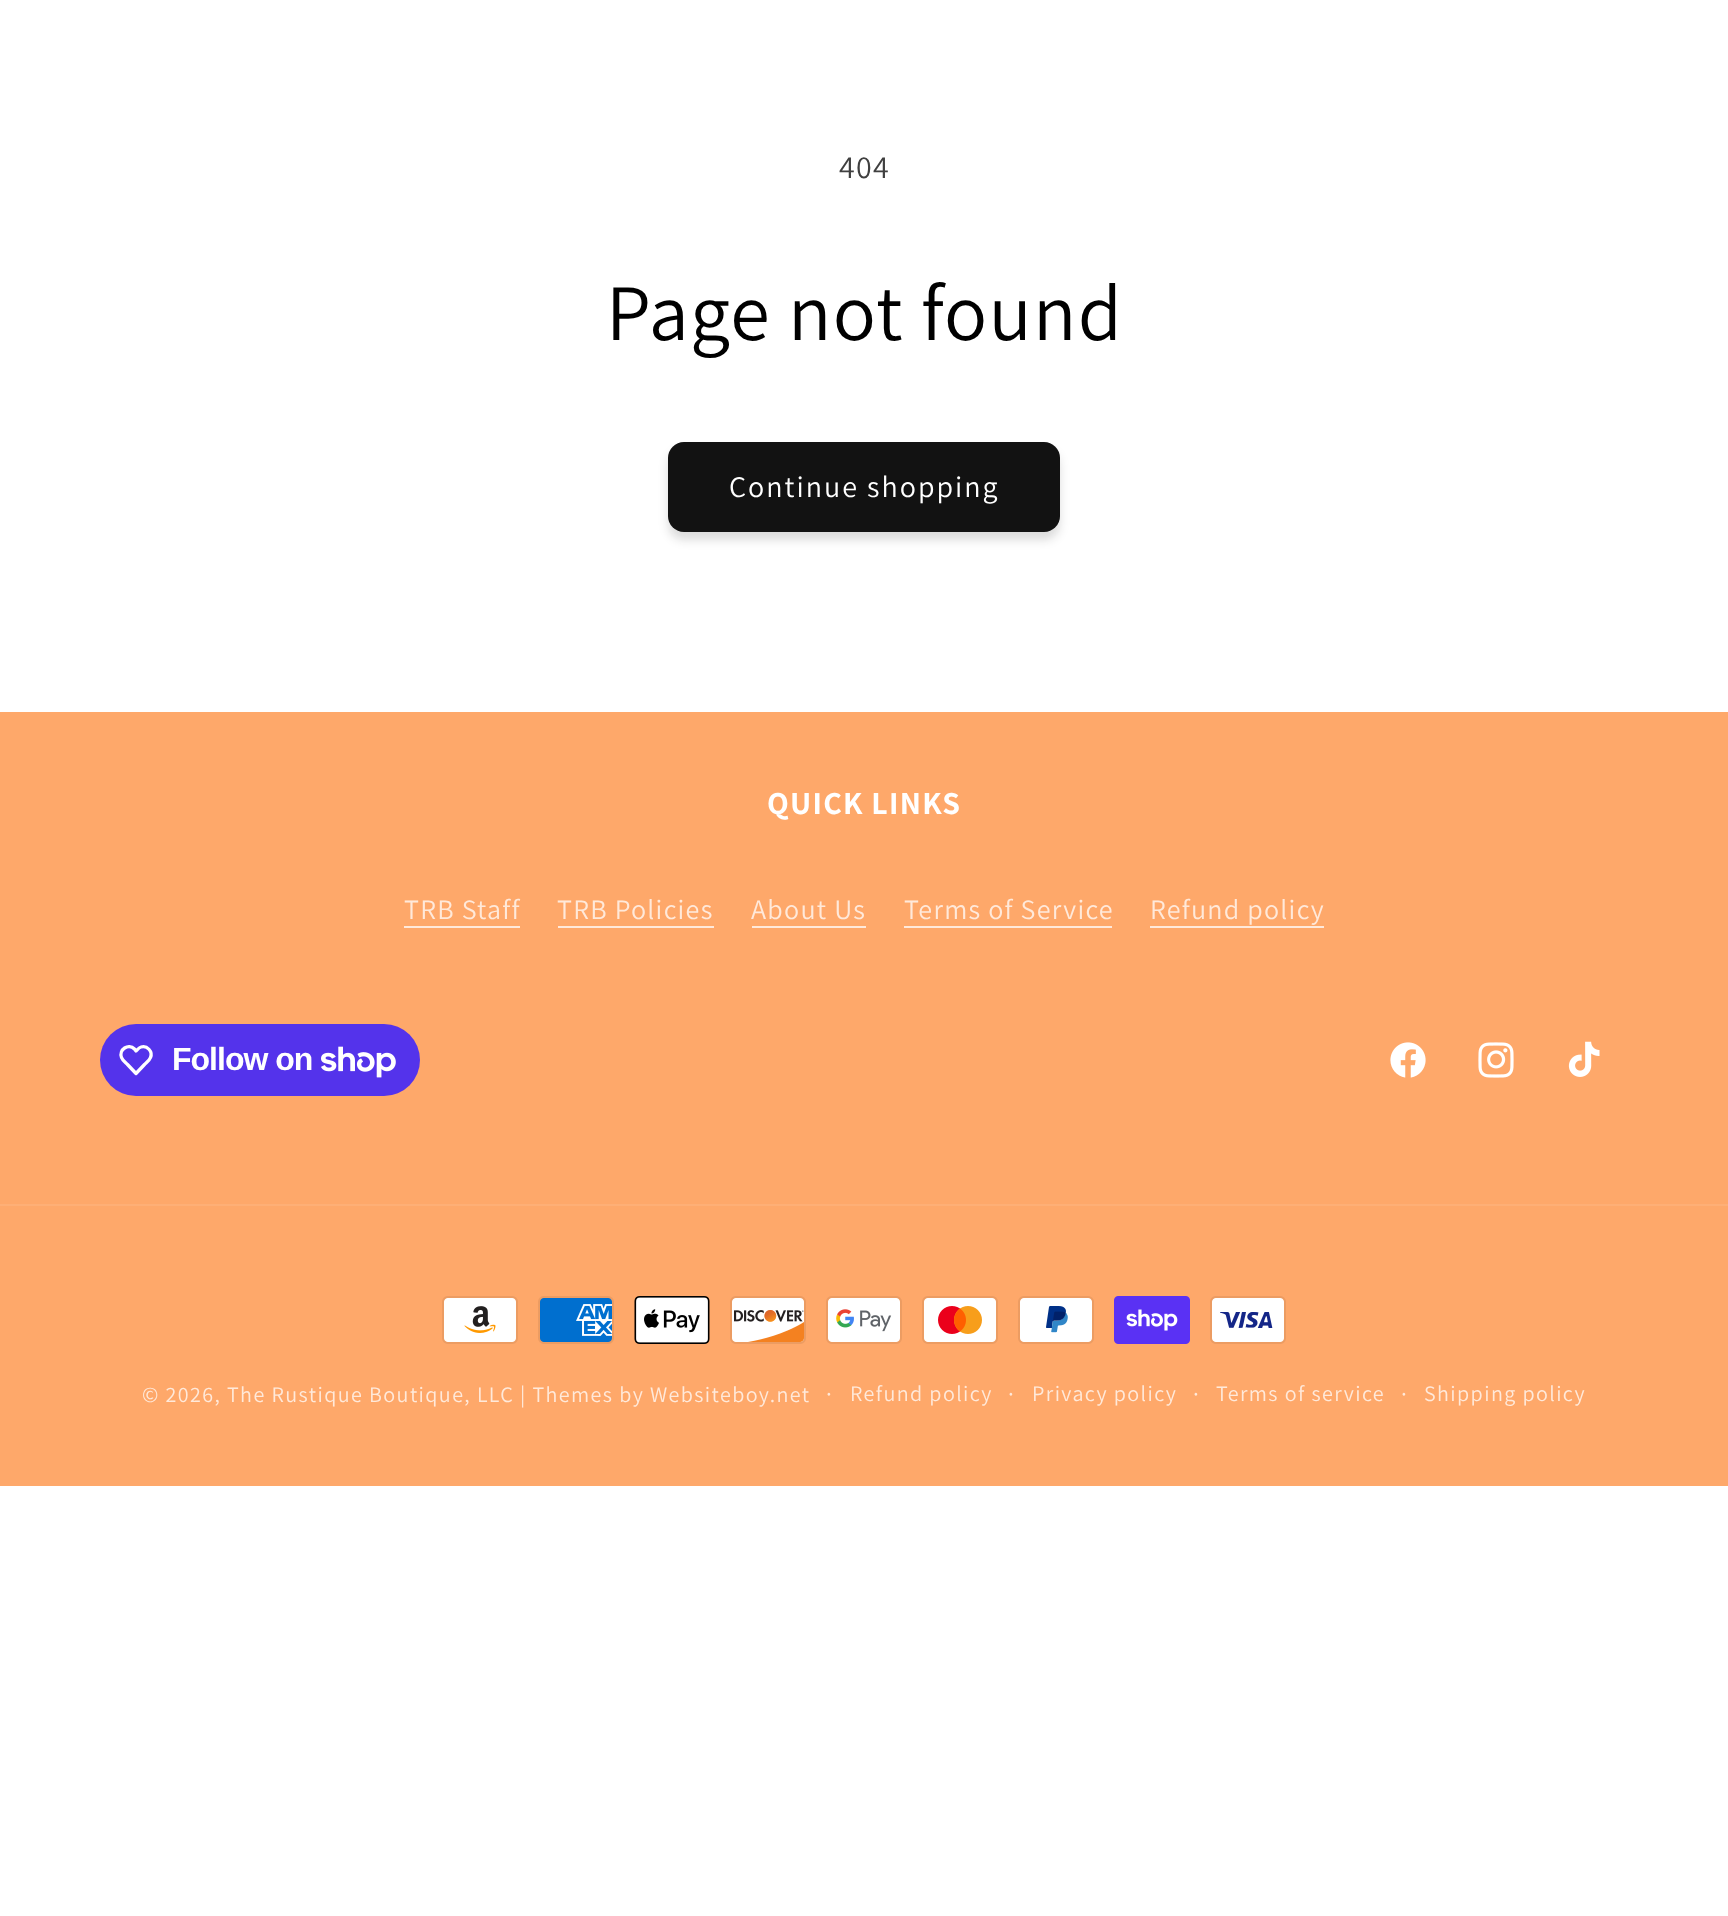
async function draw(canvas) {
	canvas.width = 1728;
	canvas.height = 1916;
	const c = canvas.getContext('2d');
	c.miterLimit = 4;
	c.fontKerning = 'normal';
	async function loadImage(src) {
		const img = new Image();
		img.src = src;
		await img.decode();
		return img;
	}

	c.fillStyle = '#fff';
	c.fillRect(0, 0, 1728, 1916);
	c.letterSpacing = '1.25px';
	c.font = '32px Assistant';
	c.fillStyle = '#404040';
	c.fillText('404', 839, 178);
	c.font = '80px Assistant';
	c.fillStyle = '#000';
	c.fillText('Page not found', 606, 340);
	c.fillStyle = '#12121226';
	c.filter = 'blur(5px)';
	c.beginPath();
	c.roundRect(668, 450, 392, 90, 16);
	c.fill();
	c.filter = 'none';
	c.fillStyle = '#121212';
	c.beginPath();
	c.roundRect(668, 442, 392, 90, 16);
	c.fill();
	c.letterSpacing = '2px';
	c.font = '30px Assistant';
	c.fillStyle = '#fff';
	c.fillText('Continue shopping', 729, 497);
	c.fillStyle = '#fea86a';
	c.fillRect(0, 712, 1728, 774);
	c.letterSpacing = '1.25px';
	c.font = 'bold 32px Assistant';
	c.fillStyle = '#fff';
	c.fillText('QUICK LINKS', 767, 814);
	c.font = '28px Assistant';
	c.fillStyle = '#ffe9da';
	c.fillText('TRB Staff', 404, 919);
	c.fillRect(404, 926, 116, 2);
	c.fillText('TRB Policies', 557, 919);
	c.fillRect(558, 926, 156, 2);
	c.fillText('About Us', 751, 919);
	c.fillRect(752, 926, 114, 2);
	c.fillText('Terms of Service', 904, 919);
	c.fillRect(904, 926, 208, 2);
	c.fillText('Refund policy', 1150, 919);
	c.fillRect(1150, 926, 174, 2);
	c.fillStyle = '#5433eb';
	c.beginPath();
	c.roundRect(100, 1024, 320, 72, 36);
	c.fill();
	c.beginPath();
	c.moveTo(134.5, 1049);
	c.lineTo(136, 1051);
	c.bezierCurveTo(137.5, 1049.5, 139, 1047.5, 141, 1047);
	c.bezierCurveTo(147, 1045, 153, 1051.5, 150.5, 1057.5);
	c.bezierCurveTo(149.5, 1060.5, 146.5, 1062.5, 144.5, 1064.5);
	c.lineTo(136, 1073.5);
	c.lineTo(127.5, 1064.5);
	c.bezierCurveTo(125.5, 1062.5, 122.5, 1060.5, 121.5, 1057.5);
	c.bezierCurveTo(118.5, 1049.5, 128.5, 1043, 134.5, 1049);
	c.closePath();
	c.strokeStyle = '#fff';
	c.lineWidth = 3.3;
	c.lineJoin = 'round';
	c.stroke();
	c.letterSpacing = '-1px';
	c.font = 'bold 32px Liberation Sans';
	c.fillStyle = '#fff';
	c.fillText('Follow on', 172, 1070);
	c.drawImage(await loadImage('img1.png'), 321, 1046, 75, 32);
	c.drawImage(await loadImage('img2.png'), 1390, 1042, 36, 36);
	c.drawImage(await loadImage('img3.png'), 1478, 1042, 36, 36);
	c.drawImage(await loadImage('img4.png'), 1568, 1041, 32, 36);
	c.fillStyle = '#feaf76';
	c.fillRect(0, 1204, 1728, 2);
	c.drawImage(await loadImage('img5.png'), 442, 1296, 76, 48);
	c.drawImage(await loadImage('img6.png'), 538, 1296, 76, 48);
	c.drawImage(await loadImage('img7.png'), 634, 1296, 76, 48);
	c.drawImage(await loadImage('img8.png'), 730, 1296, 76, 48);
	c.drawImage(await loadImage('img9.png'), 826, 1296, 76, 48);
	c.drawImage(await loadImage('img10.png'), 922, 1296, 76, 48);
	c.drawImage(await loadImage('img11.png'), 1018, 1296, 76, 48);
	c.drawImage(await loadImage('img12.png'), 1114, 1296, 76, 48);
	c.drawImage(await loadImage('img13.png'), 1210, 1296, 76, 48);
	c.letterSpacing = '1.4px';
	c.font = '22px Assistant';
	c.fillStyle = '#ffe9da';
	c.fillText('© 2026, The Rustique Boutique, LLC | Themes by Websiteboy.net', 142, 1402);
	c.font = '24px Assistant';
	c.fillText('·', 826, 1402);
	c.font = '22px Assistant';
	c.fillText('Refund policy', 850, 1401);
	c.font = '24px Assistant';
	c.fillText('·', 1008, 1402);
	c.font = '22px Assistant';
	c.fillText('Privacy policy', 1032, 1401);
	c.font = '24px Assistant';
	c.fillText('·', 1193, 1402);
	c.font = '22px Assistant';
	c.fillText('Terms of service', 1216, 1401);
	c.font = '24px Assistant';
	c.fillText('·', 1401, 1402);
	c.font = '22px Assistant';
	c.fillText('Shipping policy', 1424, 1401);
}

draw(document.querySelector('canvas'));
